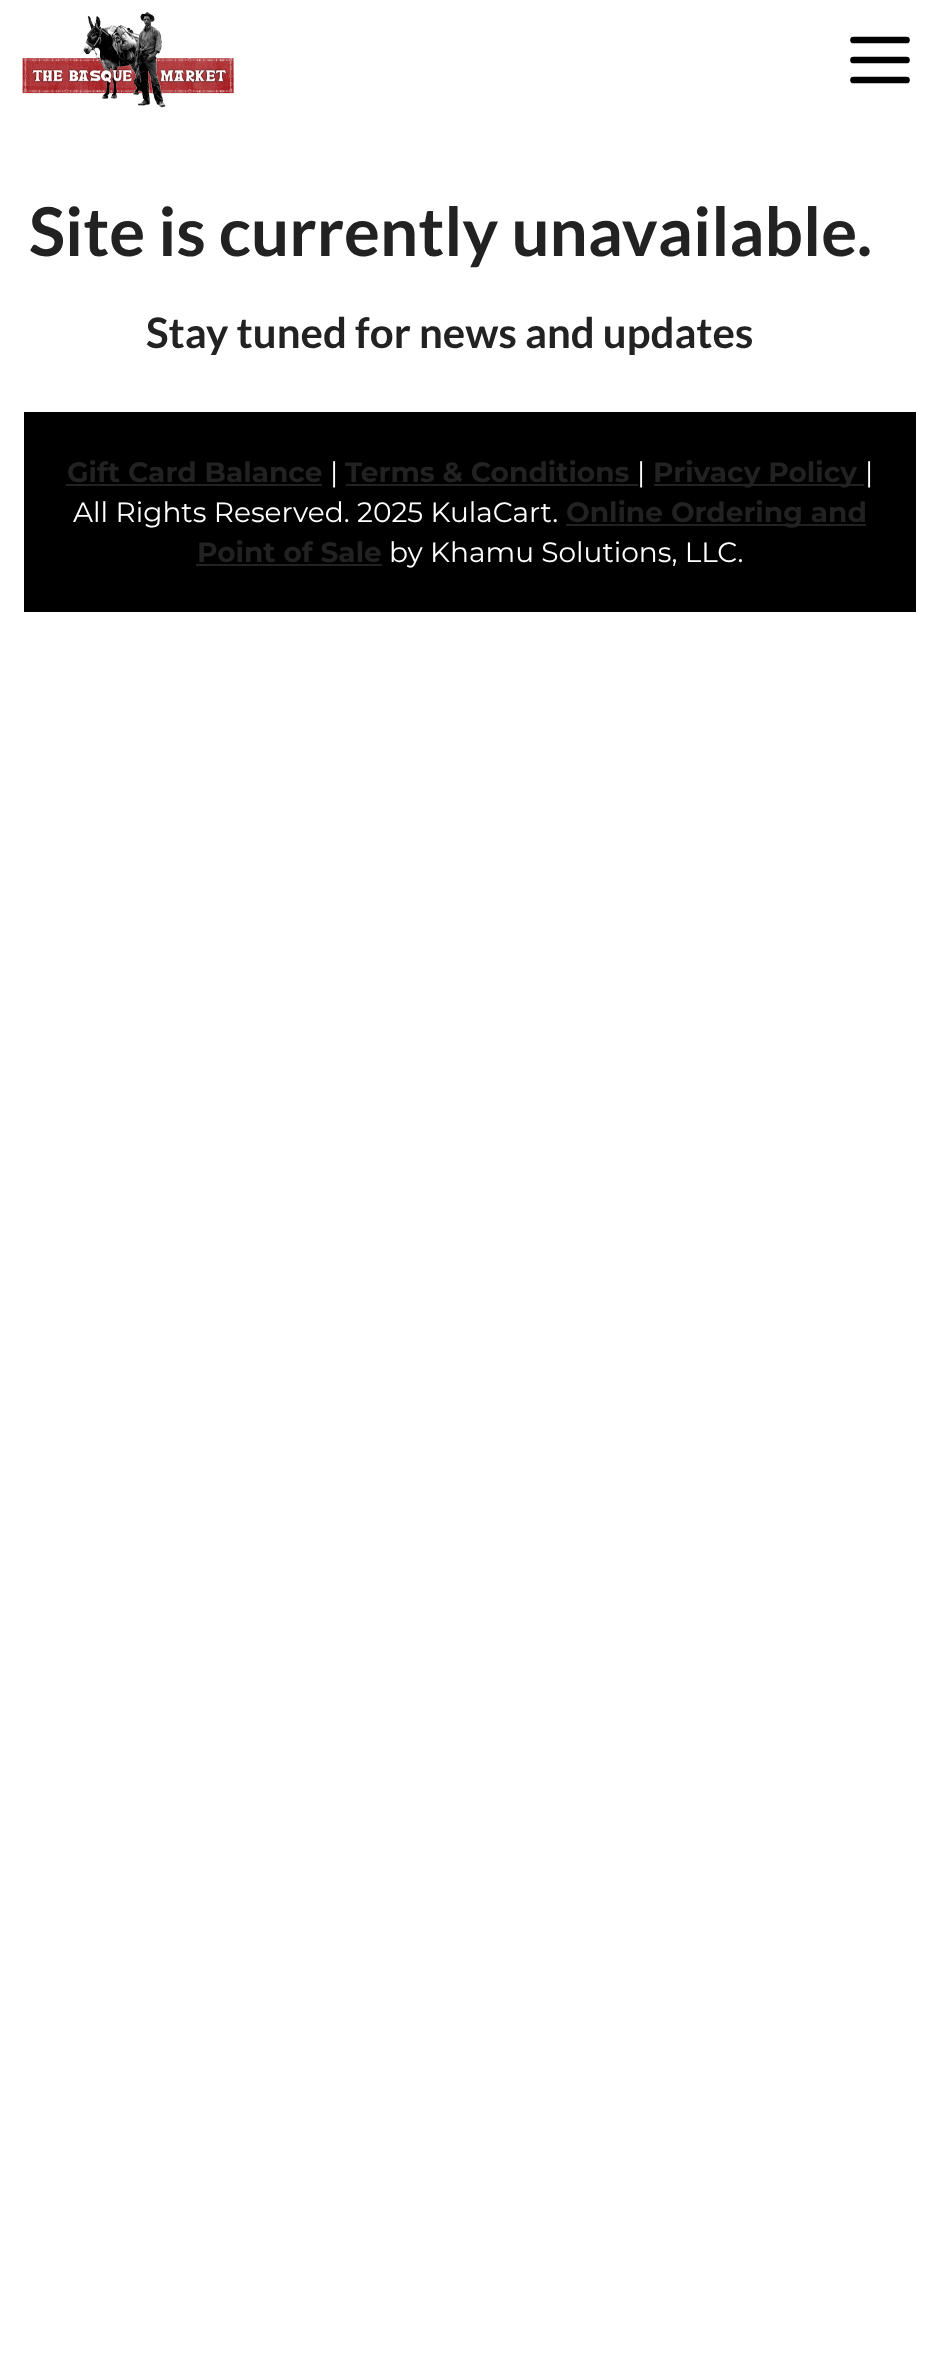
async function draw(canvas) {
	canvas.width = 939;
	canvas.height = 2360;
	const c = canvas.getContext('2d');
	c.miterLimit = 4;
	c.fontKerning = 'normal';
	async function loadImage(src) {
		const img = new Image();
		img.src = src;
		await img.decode();
		return img;
	}

	c.fillStyle = '#fff';
	c.fillRect(0, 0, 939, 2360);
	c.drawImage(await loadImage('img1.png'), 22, 12, 212, 96);
	c.beginPath();
	c.moveTo(853.5, 80);
	c.lineTo(906.5, 80);
	c.moveTo(853.5, 60);
	c.lineTo(906.5, 60);
	c.moveTo(853.5, 40);
	c.lineTo(906.5, 40);
	c.strokeStyle = '#000';
	c.lineWidth = 6.7;
	c.lineCap = 'round';
	c.stroke();
	c.font = 'bold 67.25px Lato';
	c.fillStyle = '#222';
	c.fillText('Site is currently unavailable.', 29, 256);
	c.font = 'bold 42px Lato';
	c.fillText('Stay tuned for news and updates', 146, 348);
	c.fillStyle = '#000';
	c.fillRect(24, 412, 892, 200);
	c.font = 'bold 28px Montserrat';
	c.fillStyle = '#222';
	c.fillText('Gift Card Balance', 67, 482);
	c.fillRect(66, 484, 256, 2);
	c.font = '28px Montserrat';
	c.fillStyle = '#fff';
	c.fillText('|', 330, 482);
	c.font = 'bold 28px Montserrat';
	c.fillStyle = '#222';
	c.fillText('Terms & Conditions', 345, 482);
	c.fillRect(346, 484, 292, 2);
	c.font = '28px Montserrat';
	c.fillStyle = '#fff';
	c.fillText('|', 637, 482);
	c.fillStyle = '#222';
	c.fillRect(654, 484, 210, 2);
	c.font = 'bold 28px Montserrat';
	c.fillText('Privacy Policy', 653, 482);
	c.font = '28px Montserrat';
	c.fillStyle = '#fff';
	c.fillText('|', 865, 482);
	c.fillText('All Rights Reserved. 2025 KulaCart.', 73, 522);
	c.fillStyle = '#222';
	c.fillRect(566, 524, 300, 2);
	c.font = 'bold 28px Montserrat';
	c.fillText('Online Ordering and', 566, 522);
	c.fillText('Point of Sale', 197, 562);
	c.fillRect(196, 564, 186, 2);
	c.font = '28px Montserrat';
	c.fillStyle = '#fff';
	c.fillText('by Khamu Solutions, LLC.', 389, 562);
}

draw(document.querySelector('canvas'));
